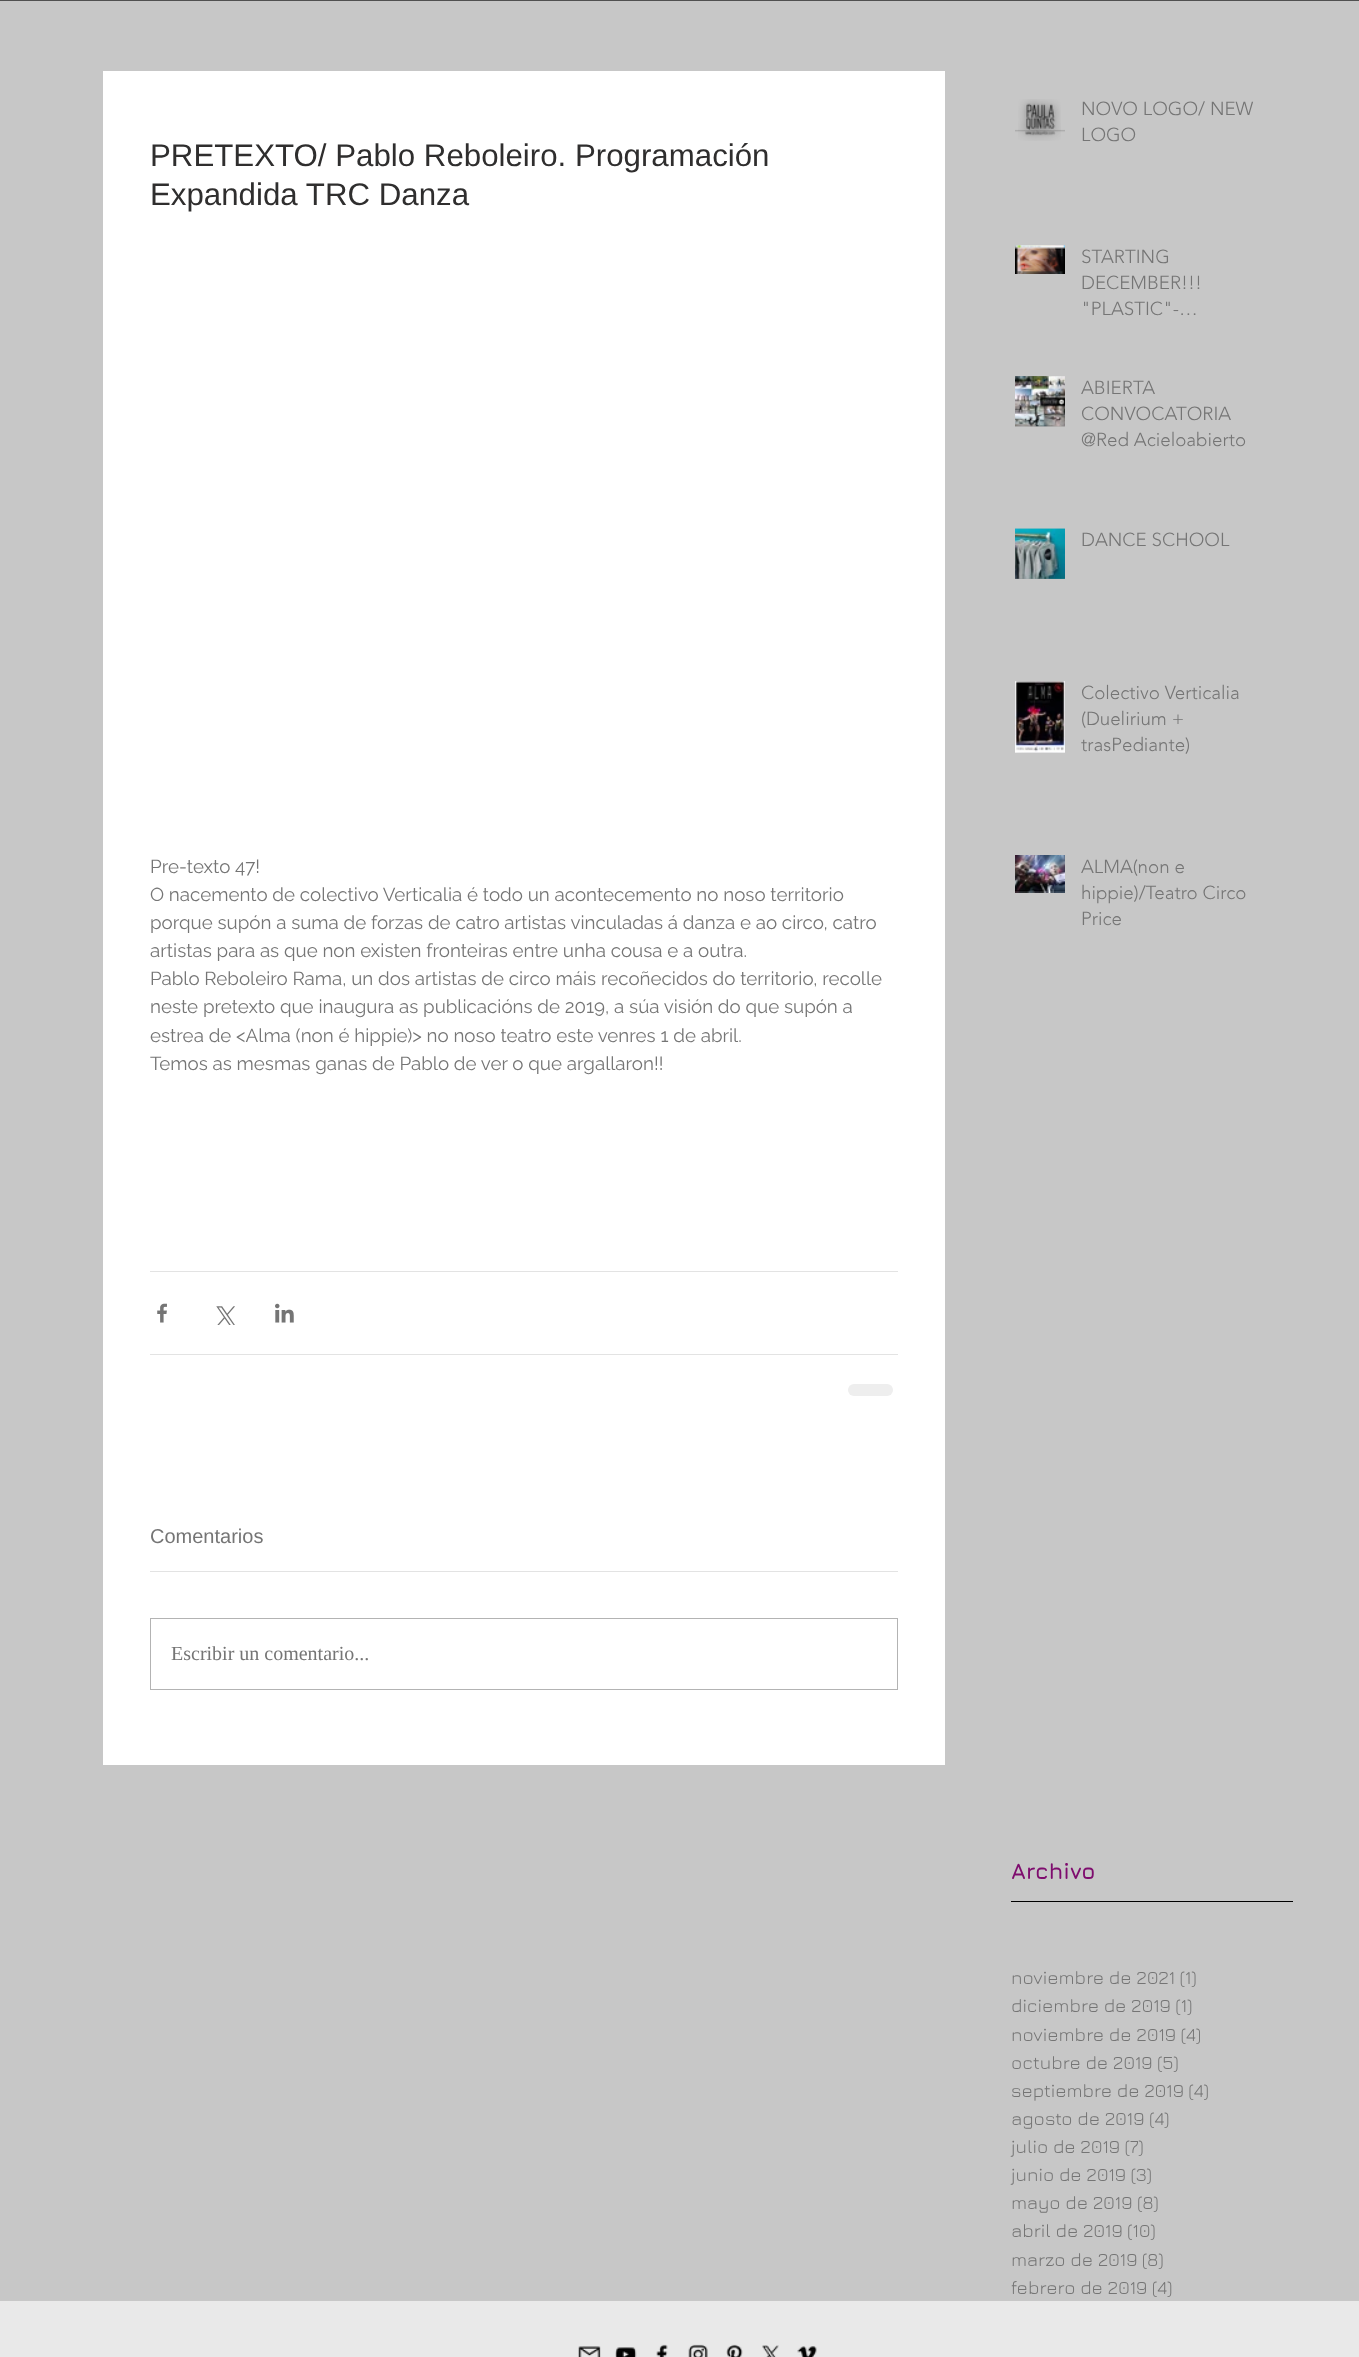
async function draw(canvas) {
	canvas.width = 1359;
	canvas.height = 2357;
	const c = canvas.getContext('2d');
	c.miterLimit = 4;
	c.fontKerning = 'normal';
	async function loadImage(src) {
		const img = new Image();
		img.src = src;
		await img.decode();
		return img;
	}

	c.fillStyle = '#c7c7c7';
	c.fillRect(0, 0, 1359, 2357);
	c.fillStyle = '#505050';
	c.fillRect(0, 0, 1359, 1);
	c.fillStyle = '#fff';
	c.fillRect(103, 71, 842, 1694);
	c.font = '31.25px Liberation Sans';
	c.fillStyle = '#2f2e2e';
	c.fillText('PRETEXTO/ Pablo Reboleiro. Programación', 150, 166);
	c.fillText('Expandida TRC Danza', 150, 205);
	c.font = '18.75px Raleway';
	c.fillStyle = '#757575';
	for (const [text, x, y] of [
		['Pre-texto 47!', 150, 873],
		['O nacemento de colectivo Verticalia é todo un acontecemento no noso territorio', 150, 901],
		['porque supón a suma de forzas de catro artistas vinculadas á danza e ao circo, catro', 150, 929],
		['artistas para as que non existen fronteiras entre unha cousa e a outra.', 150, 957],
		['Pablo Reboleiro Rama, un dos artistas de circo máis recoñecidos do territorio, recolle', 150, 985],
		['neste pretexto que inaugura as publicacións de 2019, a súa visión do que supón a', 150, 1013],
		['estrea de <Alma (non é hippie)> no noso teatro este venres 1 de abril.', 150, 1042],
		['Temos as mesmas ganas de Pablo de ver o que argallaron!!', 150, 1070],
	]) {
		c.fillText(text, x, y);
	}
	c.fillStyle = '#e3e3e3';
	c.fillRect(150, 1271, 748, 1);
	c.drawImage(await loadImage('img1.png'), 157, 1303, 10, 20);
	c.drawImage(await loadImage('img2.png'), 216, 1306, 19, 19);
	c.drawImage(await loadImage('img3.png'), 275, 1303, 19, 20);
	c.fillRect(150, 1354, 748, 1);
	c.fillStyle = '#eee';
	c.beginPath();
	c.roundRect(848, 1384, 45, 12, 6);
	c.fill();
	c.font = '20px Liberation Sans';
	c.fillStyle = '#757575';
	c.fillText('Comentarios', 150, 1543);
	c.fillStyle = '#e3e3e3';
	c.fillRect(150, 1571, 748, 1);
	c.strokeStyle = '#b3b3b3';
	c.strokeRect(150.5, 1618.5, 747, 71);
	c.font = '20px Liberation Serif';
	c.fillStyle = '#757575';
	c.fillText('Escribir un comentario...', 171, 1660);
	c.drawImage(await loadImage('img4.png'), 1018, 99, 43, 42);
	c.drawImage(await loadImage('img5.png'), 1015, 103, 50, 33);
	c.font = '300 18.75px "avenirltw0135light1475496"';
	c.fillText('NOVO LOGO/ NEW', 1081, 115);
	c.fillText('LOGO', 1081, 141);
	c.drawImage(await loadImage('img6.png'), 1015, 245, 50, 29);
	for (const [text, x, y] of [
		['STARTING', 1081, 263],
		['DECEMBER!!!', 1081, 289],
		['"PLASTIC"-…', 1081, 315],
	]) {
		c.fillText(text, x, y);
	}
	c.drawImage(await loadImage('img7.png'), 1015, 376, 50, 51);
	c.drawImage(await loadImage('img8.png'), 1015, 376, 50, 51);
	for (const [text, x, y] of [
		['ABIERTA', 1081, 394],
		['CONVOCATORIA', 1081, 420],
		['@Red Acieloabierto', 1081, 446],
	]) {
		c.fillText(text, x, y);
	}
	c.drawImage(await loadImage('img9.png'), 1015, 528, 50, 51);
	c.drawImage(await loadImage('img10.png'), 1015, 528, 50, 51);
	c.fillText('DANCE SCHOOL', 1081, 546);
	c.drawImage(await loadImage('img11.png'), 1015, 681, 50, 72);
	c.drawImage(await loadImage('img12.png'), 1015, 681, 50, 72);
	for (const [text, x, y] of [
		['Colectivo Verticalia', 1081, 699],
		['(Duelirium +', 1081, 725],
		['trasPediante)', 1081, 751],
	]) {
		c.fillText(text, x, y);
	}
	c.drawImage(await loadImage('img13.png'), 1015, 855, 50, 38);
	for (const [text, x, y] of [
		['ALMA(non e', 1081, 873],
		['hippie)/Teatro Circo', 1081, 899],
		['Price', 1081, 925],
	]) {
		c.fillText(text, x, y);
	}
	c.font = 'bold 22.5px Jura';
	c.fillStyle = '#7e0c6e';
	c.fillText('Archivo', 1011, 1879);
	c.fillStyle = '#000';
	c.fillRect(1011, 1901, 282, 1);
	c.font = '18.75px Jura';
	c.fillStyle = '#757575';
	for (const [text, x, y] of [
		['noviembre de 2021 (1)', 1011, 1984],
		['diciembre de 2019 (1)', 1011, 2012],
		['noviembre de 2019 (4)', 1011, 2041],
		['octubre de 2019 (5)', 1011, 2069],
		['septiembre de 2019 (4)', 1011, 2097],
		['agosto de 2019 (4)', 1011, 2125],
		['julio de 2019 (7)', 1011, 2153],
		['junio de 2019 (3)', 1011, 2181],
		['mayo de 2019 (8)', 1011, 2209],
		['abril de 2019 (10)', 1011, 2237],
		['marzo de 2019 (8)', 1011, 2266],
		['febrero de 2019 (4)', 1011, 2294],
	]) {
		c.fillText(text, x, y);
	}
	c.fillStyle = '#e9e9e9';
	c.fillRect(0, 2301, 1359, 56);
	c.drawImage(await loadImage('img14.png'), 578, 2346, 23, 11);
	c.drawImage(await loadImage('img15.png'), 615, 2347, 22, 10);
	c.drawImage(await loadImage('img16.png'), 656, 2344, 12, 13);
	c.drawImage(await loadImage('img17.png'), 688, 2344, 20, 13);
	c.drawImage(await loadImage('img18.png'), 726, 2344, 17, 13);
	c.drawImage(await loadImage('img19.png'), 762, 2345, 17, 12);
	c.drawImage(await loadImage('img20.png'), 797, 2346, 20, 11);
}

draw(document.querySelector('canvas'));
